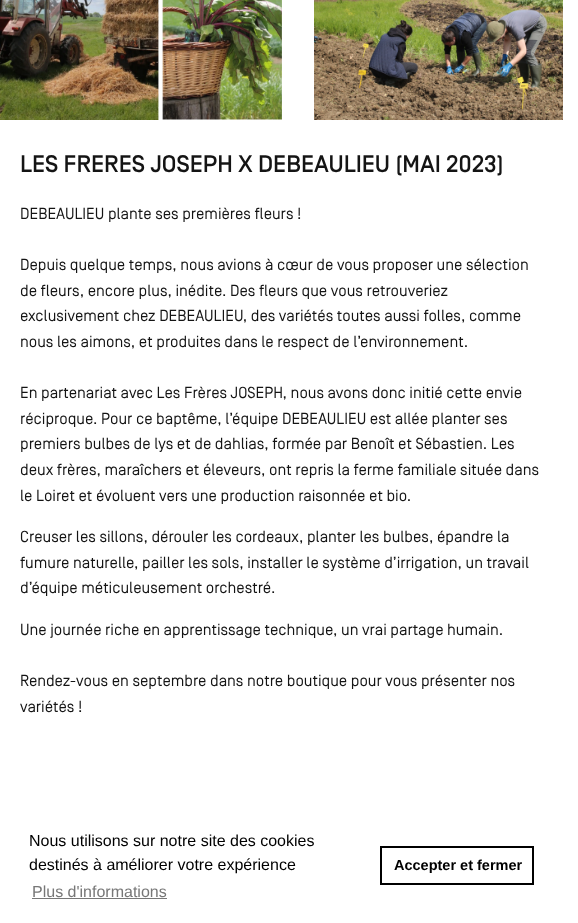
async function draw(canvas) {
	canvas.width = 578;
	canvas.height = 923;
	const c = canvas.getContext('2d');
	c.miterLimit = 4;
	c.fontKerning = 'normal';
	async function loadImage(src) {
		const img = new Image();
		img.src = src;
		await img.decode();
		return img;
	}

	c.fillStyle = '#fff';
	c.fillRect(0, 0, 578, 923);
	c.drawImage(await loadImage('img1.png'), 0, 0, 282, 120);
	c.drawImage(await loadImage('img2.png'), 314, 0, 249, 120);
	c.font = '500 24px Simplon';
	c.fillStyle = '#141414';
	c.fillText('LES FRERES JOSEPH X DEBEAULIEU (MAI 2023)', 20, 172);
	c.font = '16px Simplon';
	for (const [text, x, y] of [
		['DEBEAULIEU plante ses premières fleurs !', 20, 219],
		['Depuis quelque temps, nous avions à cœur de vous proposer une sélection', 20, 270],
		['de fleurs, encore plus, inédite. Des fleurs que vous retrouveriez', 20, 296],
		['exclusivement chez DEBEAULIEU, des variétés toutes aussi folles, comme', 20, 321],
		['nous les aimons, et produites dans le respect de l’environnement.', 20, 347],
		['En partenariat avec Les Frères JOSEPH, nous avons donc initié cette envie', 20, 398],
		['réciproque. Pour ce baptême, l’équipe DEBEAULIEU est allée planter ses', 20, 424],
		['premiers bulbes de lys et de dahlias, formée par Benoît et Sébastien. Les', 20, 449],
		['deux frères, maraîchers et éleveurs, ont repris la ferme familiale située dans', 20, 475],
		['le Loiret et évoluent vers une production raisonnée et bio.', 20, 501],
		['Creuser les sillons, dérouler les cordeaux, planter les bulbes, épandre la', 20, 542],
		['fumure naturelle, pailler les sols, installer le système d’irrigation, un travail', 20, 568],
		['d’équipe méticuleusement orchestré.', 20, 593],
		['Une journée riche en apprentissage technique, un vrai partage humain.', 20, 635],
		['Rendez-vous en septembre dans notre boutique pour vous présenter nos', 20, 686],
		['variétés !', 20, 712],
	]) {
		c.fillText(text, x, y);
	}
	c.font = '16px Liberation Sans';
	c.fillStyle = '#000';
	c.fillText('Nous utilisons sur notre site des cookies', 29, 846);
	c.fillText('destinés à améliorer votre expérience', 29, 870);
	c.fillStyle = '#777';
	c.fillText('Plus d\'informations', 32, 897);
	c.fillRect(32, 898, 135, 1);
	c.strokeStyle = '#000';
	c.lineWidth = 2;
	c.strokeRect(381, 847, 152, 37);
	c.font = 'bold 14.5px Liberation Sans';
	c.fillStyle = '#000';
	c.fillText('Accepter et fermer', 394, 870);
}

draw(document.querySelector('canvas'));
